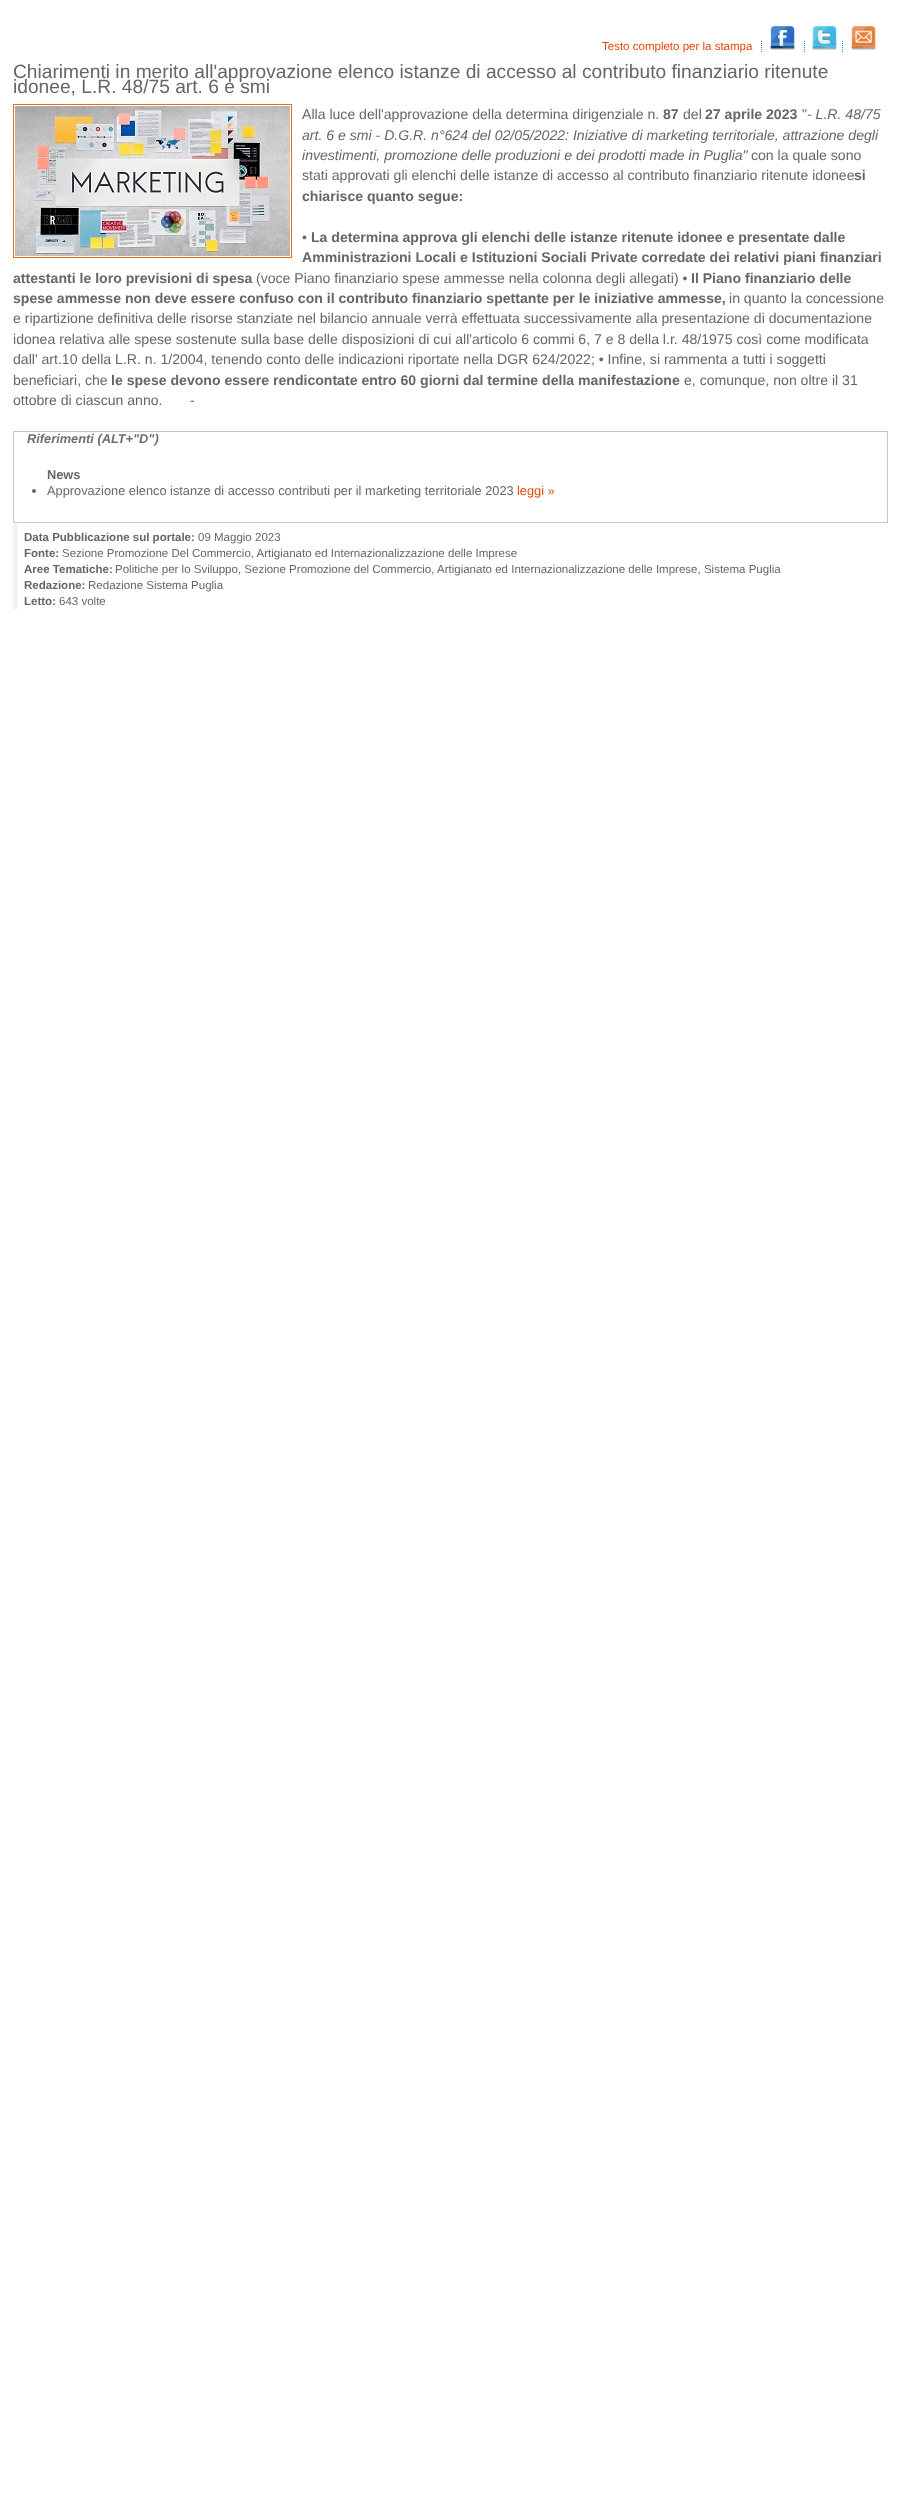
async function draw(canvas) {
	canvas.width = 901;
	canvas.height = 2503;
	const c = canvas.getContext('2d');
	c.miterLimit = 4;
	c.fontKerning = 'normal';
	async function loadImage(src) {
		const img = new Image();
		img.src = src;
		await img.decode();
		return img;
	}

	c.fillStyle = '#fff';
	c.fillRect(0, 0, 901, 2503);
	c.font = '11.52px Liberation Sans';
	c.fillStyle = '#e44906';
	c.fillText('Testo completo per la stampa', 602, 50);
	c.drawImage(await loadImage('img1.png'), 761, 41, 1, 11);
	c.drawImage(await loadImage('img2.png'), 770, 26, 25, 24);
	c.drawImage(await loadImage('img1.png'), 804, 41, 1, 11);
	c.drawImage(await loadImage('img3.png'), 812, 26, 25, 24);
	c.drawImage(await loadImage('img1.png'), 842, 41, 1, 11);
	c.drawImage(await loadImage('img4.png'), 851, 26, 25, 24);
	c.font = '19.2px Liberation Sans';
	c.fillStyle = '#666';
	c.fillText('Chiarimenti in merito all\'approvazione elenco istanze di accesso al contributo finanziario ritenute', 13, 78);
	c.fillText('idonee, L.R. 48/75 art. 6 e smi', 13, 93);
	c.strokeStyle = '#ec6c13';
	c.strokeRect(13.5, 104.5, 278, 153);
	c.drawImage(await loadImage('img5.png'), 15, 106, 275, 150);
	c.font = '14.08px Liberation Sans';
	c.fillText('Alla luce dell\'approvazione della determina dirigenziale n.', 302, 119);
	c.font = 'bold 14.08px Liberation Sans';
	c.fillText('87', 663, 119);
	c.font = '14.08px Liberation Sans';
	c.fillText('del', 683, 119);
	c.font = 'bold 14.08px Liberation Sans';
	c.fillText('27 aprile 2023', 705, 119);
	c.font = '14.08px Liberation Sans';
	c.fillText('"', 802, 119);
	c.font = 'italic 14.08px Liberation Sans';
	for (const [text, x, y] of [
		['- L.R. 48/75', 807, 119],
		['art. 6 e smi - D.G.R. n°624 del 02/05/2022: Iniziative di marketing territoriale, attrazione degli', 302, 140],
		['investimenti, promozione delle produzioni e dei prodotti made in Puglia"', 302, 160],
	]) {
		c.fillText(text, x, y);
	}
	c.font = '14.08px Liberation Sans';
	c.fillText('con la quale sono', 751, 160);
	c.fillText('stati approvati gli elenchi delle istanze di accesso al contributo finanziario ritenute idonee', 302, 180);
	c.font = 'bold 14.08px Liberation Sans';
	c.fillText('si', 854, 180);
	c.fillText('chiarisce quanto segue:', 302, 201);
	c.font = '14.08px Liberation Sans';
	c.fillText('•', 302, 242);
	c.font = 'bold 14.08px Liberation Sans';
	for (const [text, x, y] of [
		['La determina approva gli elenchi delle istanze ritenute idonee e presentate dalle', 311, 242],
		['Amministrazioni Locali e Istituzioni Sociali Private corredate dei relativi piani finanziari', 302, 262],
		['attestanti le loro previsioni di spesa', 13, 283],
	]) {
		c.fillText(text, x, y);
	}
	c.font = '14.08px Liberation Sans';
	c.fillText('(voce Piano finanziario spese ammesse nella colonna degli allegati) •', 256, 283);
	c.font = 'bold 14.08px Liberation Sans';
	c.fillText('Il Piano finanziario delle', 691, 283);
	c.fillText('spese ammesse non deve essere confuso con il contributo finanziario spettante per le iniziative ammesse,', 13, 303);
	c.font = '14.08px Liberation Sans';
	for (const [text, x, y] of [
		['in quanto la concessione', 729, 303],
		['e ripartizione definitiva delle risorse stanziate nel bilancio annuale verrà effettuata successivamente alla presentazione di documentazione', 13, 323],
		['idonea relativa alle spese sostenute sulla base delle disposizioni di cui all\'articolo 6 commi 6, 7 e 8 della l.r. 48/1975 così come modificata', 13, 344],
		['dall\' art.10 della L.R. n. 1/2004, tenendo conto delle indicazioni riportate nella DGR 624/2022; • Infine, si rammenta a tutti i soggetti', 13, 364],
		['beneficiari, che', 13, 385],
	]) {
		c.fillText(text, x, y);
	}
	c.font = 'bold 14.08px Liberation Sans';
	c.fillText('le spese devono essere rendicontate entro 60 giorni dal termine della manifestazione', 111, 385);
	c.font = '14.08px Liberation Sans';
	for (const [text, x, y] of [
		['e, comunque, non oltre il 31', 684, 385],
		['ottobre di ciascun anno.', 13, 405],
		['-', 190, 405],
	]) {
		c.fillText(text, x, y);
	}
	c.strokeStyle = '#c7c7c7';
	c.strokeRect(13.5, 431.5, 874, 91);
	c.font = 'italic bold 12.8px Liberation Sans';
	c.fillStyle = '#6f6f6f';
	c.fillText('Riferimenti (ALT+"D")', 27, 443);
	c.font = 'bold 12.8px Liberation Sans';
	c.fillStyle = '#666';
	c.fillText('News', 47, 479);
	c.beginPath();
	c.arc(34, 491, 2, 0, 2 * Math.PI);
	c.fill();
	c.font = '12.8px Liberation Sans';
	c.fillText('Approvazione elenco istanze di accesso contributi per il marketing territoriale 2023', 47, 495);
	c.fillStyle = '#e44906';
	c.fillText('leggi »', 517, 495);
	c.fillStyle = '#f2f2f2';
	c.fillRect(13, 523, 5, 86);
	c.font = 'bold 11.52px Liberation Sans';
	c.fillStyle = '#666';
	c.fillText('Data Pubblicazione sul portale:', 24, 541);
	c.font = '11.52px Liberation Sans';
	c.fillText('09 Maggio 2023', 198, 541);
	c.font = 'bold 11.52px Liberation Sans';
	c.fillText('Fonte:', 24, 557);
	c.font = '11.52px Liberation Sans';
	c.fillText('Sezione Promozione Del Commercio, Artigianato ed Internazionalizzazione delle Imprese', 62, 557);
	c.font = 'bold 11.52px Liberation Sans';
	c.fillText('Aree Tematiche:', 24, 573);
	c.font = '11.52px Liberation Sans';
	c.fillText('Politiche per lo Sviluppo, Sezione Promozione del Commercio, Artigianato ed Internazionalizzazione delle Imprese, Sistema Puglia', 115, 573);
	c.font = 'bold 11.52px Liberation Sans';
	c.fillText('Redazione:', 24, 589);
	c.font = '11.52px Liberation Sans';
	c.fillText('Redazione Sistema Puglia', 88, 589);
	c.font = 'bold 11.52px Liberation Sans';
	c.fillText('Letto:', 24, 605);
	c.font = '11.52px Liberation Sans';
	c.fillText('643 volte', 59, 605);
}

draw(document.querySelector('canvas'));
